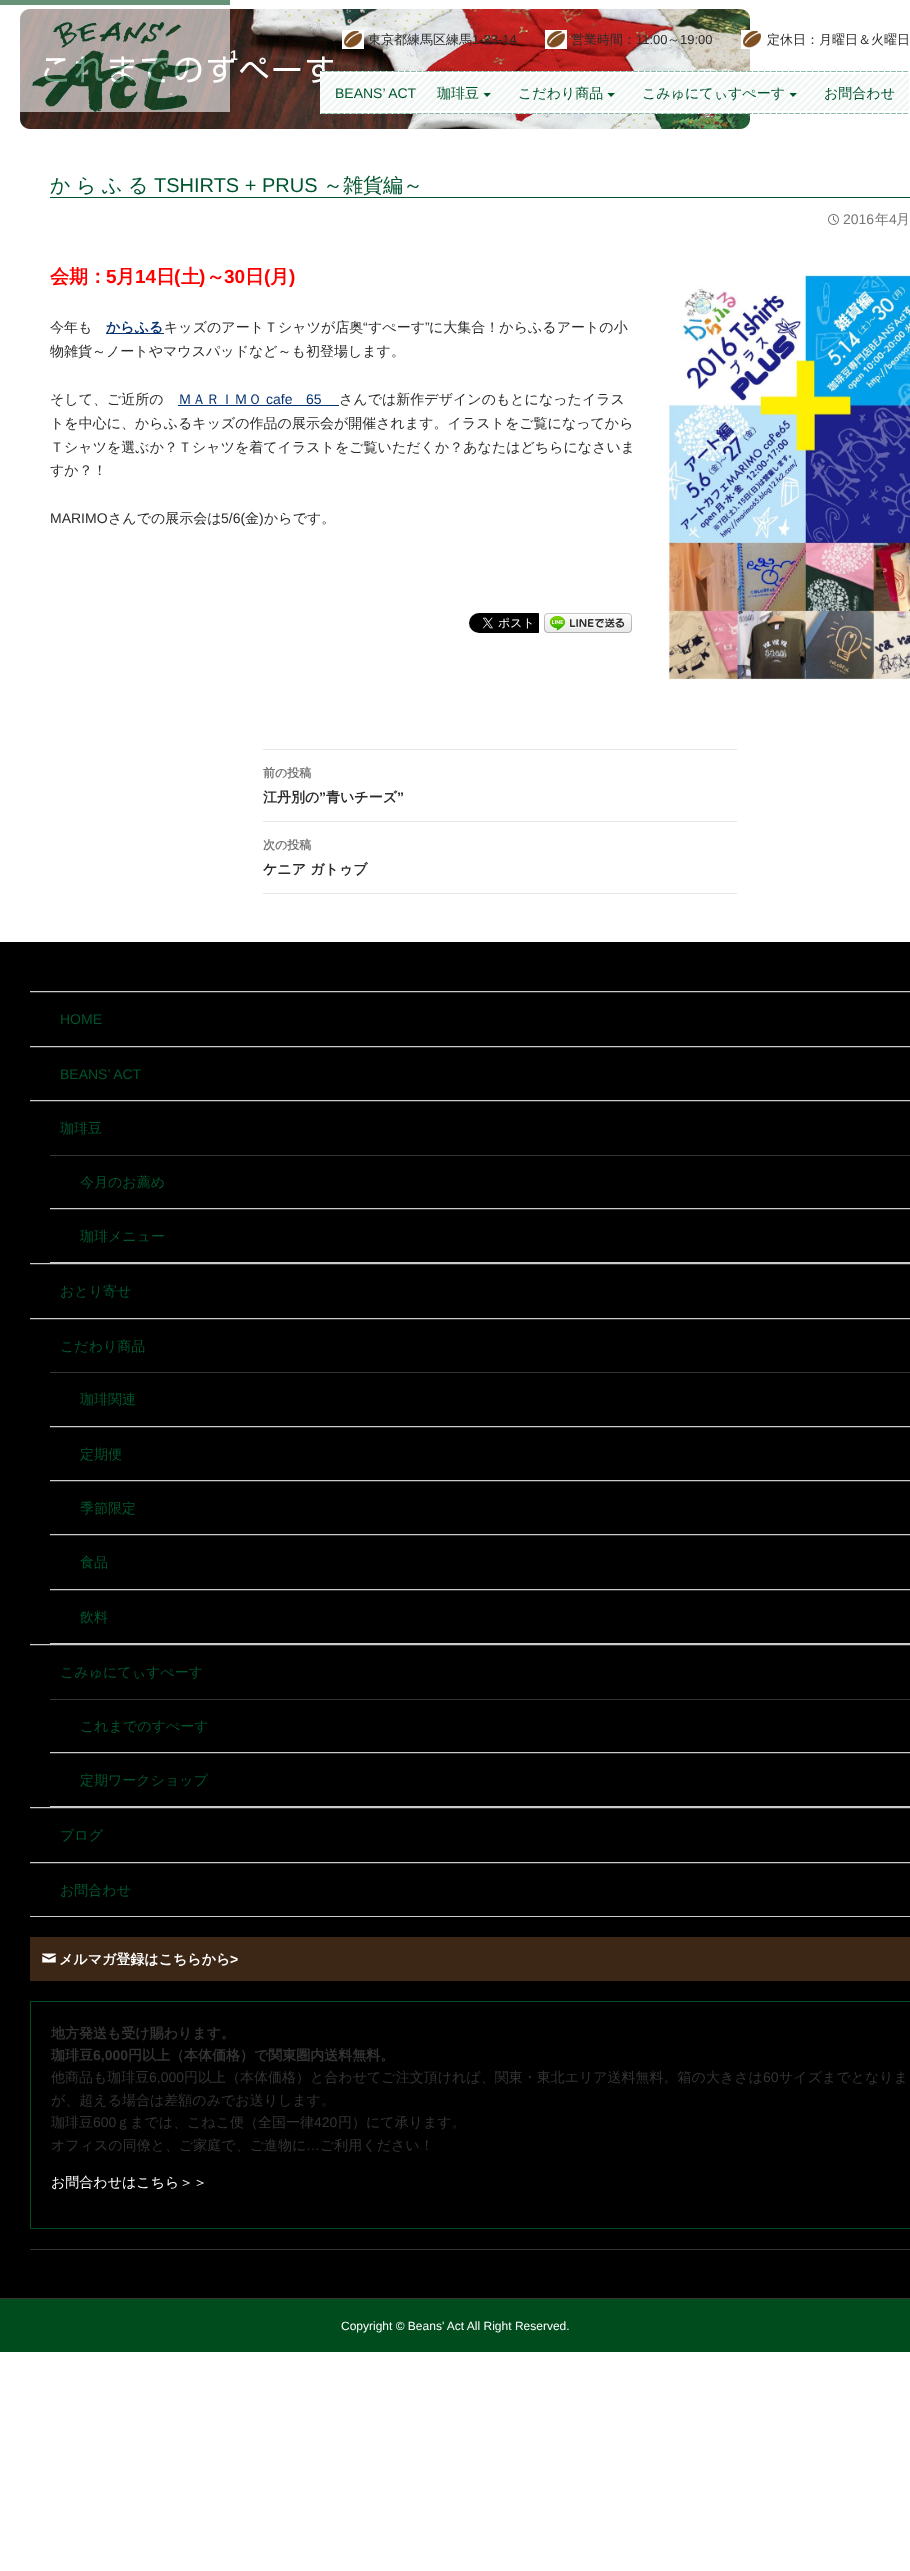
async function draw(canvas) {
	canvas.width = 910;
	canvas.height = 2571;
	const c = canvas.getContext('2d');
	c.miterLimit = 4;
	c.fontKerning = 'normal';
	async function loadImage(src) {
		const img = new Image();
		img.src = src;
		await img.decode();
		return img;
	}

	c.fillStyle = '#fff';
	c.fillRect(0, 0, 910, 2571);
	c.drawImage(await loadImage('img4.png'), 20, 9, 730, 120);
	c.drawImage(await loadImage('img1.png'), 0, 0, 230, 112);
	c.font = 'bold 14px Liberation Sans';
	c.fillText('1', 230, 60);
	c.drawImage(await loadImage('img2.png'), 342, 30, 22, 19);
	c.font = '500 13px WenQuanYi Zen Hei';
	c.fillStyle = '#2b2b2b';
	c.fillText('東京都練馬区練馬', 368, 44);
	c.font = '13px Liberation Sans';
	c.fillText('1-33-14', 472, 44);
	c.drawImage(await loadImage('img2.png'), 545, 30, 22, 19);
	c.font = '500 13px WenQuanYi Zen Hei';
	c.fillText('営業時間：', 571, 44);
	c.font = '13px Liberation Sans';
	c.fillText('11:00', 636, 44);
	c.font = '500 13px WenQuanYi Zen Hei';
	c.fillText('～', 667, 44);
	c.font = '13px Liberation Sans';
	c.fillText('19:00', 680, 44);
	c.drawImage(await loadImage('img2.png'), 741, 30, 22, 19);
	c.font = '500 13px WenQuanYi Zen Hei';
	c.fillText('定休日：月曜日＆火曜日', 767, 44);
	c.drawImage(await loadImage('img3.png'), 320, 71, 589, 43);
	c.font = '14px Liberation Sans';
	c.fillStyle = '#00552e';
	c.fillText('BEANS’ ACT', 335, 98);
	c.font = '500 14px WenQuanYi Zen Hei';
	c.fillText('珈琲豆', 437, 98);
	c.beginPath();
	c.moveTo(483.5, 93);
	c.lineTo(487, 97);
	c.lineTo(491, 93);
	c.closePath();
	c.fill();
	c.fillText('こだわり商品', 518, 98);
	c.beginPath();
	c.moveTo(607.5, 93);
	c.lineTo(611, 97);
	c.lineTo(615, 93);
	c.closePath();
	c.fill();
	c.fillText('こみゅにてぃすぺーす', 642, 98);
	c.beginPath();
	c.moveTo(789.5, 93);
	c.lineTo(793, 97);
	c.lineTo(797, 93);
	c.closePath();
	c.fill();
	c.fillText('お問合わせ', 824, 98);
	c.fillRect(50, 197, 860, 1);
	c.wordSpacing = '-0.5px';
	c.font = '500 20px WenQuanYi Zen Hei';
	c.fillText('か ら ふ る', 50, 192);
	c.wordSpacing = '0px';
	c.font = '20px Liberation Sans';
	c.fillText('TSHIRTS + PRUS', 154, 192);
	c.font = '500 20px WenQuanYi Zen Hei';
	c.fillText('～雑貨編～', 323, 192);
	c.drawImage(await loadImage('img5.png'), 828, 214, 11, 11);
	c.font = '14px Liberation Sans';
	c.fillStyle = '#767676';
	c.fillText('2016', 843, 224);
	c.font = '500 14px WenQuanYi Zen Hei';
	c.fillText('年', 875, 224);
	c.font = '14px Liberation Sans';
	c.fillText('4', 889, 224);
	c.font = '500 14px WenQuanYi Zen Hei';
	c.fillText('月', 896, 224);
	c.font = 'bold 19px WenQuanYi Zen Hei';
	c.fillStyle = '#f00';
	c.fillText('会期：', 50, 283);
	c.font = 'bold 19px Liberation Sans';
	c.fillText('5', 106, 283);
	c.font = 'bold 19px WenQuanYi Zen Hei';
	c.fillText('月', 116, 283);
	c.font = 'bold 19px Liberation Sans';
	c.fillText('14', 135, 283);
	c.font = 'bold 19px WenQuanYi Zen Hei';
	c.fillText('日', 156, 283);
	c.font = 'bold 19px Liberation Sans';
	c.fillText('(', 174, 283);
	c.font = 'bold 19px WenQuanYi Zen Hei';
	c.fillText('土', 181, 283);
	c.font = 'bold 19px Liberation Sans';
	c.fillText(')', 199, 283);
	c.font = 'bold 19px WenQuanYi Zen Hei';
	c.fillText('～', 206, 283);
	c.font = 'bold 19px Liberation Sans';
	c.fillText('30', 224, 283);
	c.font = 'bold 19px WenQuanYi Zen Hei';
	c.fillText('日', 245, 283);
	c.font = 'bold 19px Liberation Sans';
	c.fillText('(', 264, 283);
	c.font = 'bold 19px WenQuanYi Zen Hei';
	c.fillText('月', 270, 283);
	c.font = 'bold 19px Liberation Sans';
	c.fillText(')', 289, 283);
	c.drawImage(await loadImage('img6.png'), 667, 274, 243, 407);
	c.font = '500 14px WenQuanYi Zen Hei';
	c.fillStyle = '#2b2b2b';
	c.fillText('今年も', 50, 332);
	c.fillStyle = '#063271';
	c.fillRect(106, 333, 58, 1);
	c.font = 'bold 14px WenQuanYi Zen Hei';
	c.fillText('からふる', 106, 332);
	c.font = '500 14px WenQuanYi Zen Hei';
	c.fillStyle = '#2b2b2b';
	c.fillText('キッズのアートＴシャツが店奥', 164, 332);
	c.font = '14px Liberation Sans';
	c.fillText('“', 363, 332);
	c.font = '500 14px WenQuanYi Zen Hei';
	c.fillText('すぺーす', 368, 332);
	c.font = '14px Liberation Sans';
	c.fillText('”', 425, 332);
	c.font = '500 14px WenQuanYi Zen Hei';
	for (const [text, x, y] of [
		['に大集合！からふるアートの小', 429, 332],
		['物雑貨～ノートやマウスパッドなど～も初登場します。', 50, 356],
		['そして、ご近所の', 50, 404],
	]) {
		c.fillText(text, x, y);
	}
	c.fillStyle = '#063271';
	c.fillText('ＭＡＲＩＭＯ', 178, 404);
	c.fillRect(178, 405, 161, 1);
	c.font = '14px Liberation Sans';
	c.fillText('cafe', 266, 404);
	c.fillText('65', 306, 404);
	c.font = '500 14px WenQuanYi Zen Hei';
	c.fillStyle = '#2b2b2b';
	for (const [text, x, y] of [
		['さんでは新作デザインのもとになったイラス', 339, 404],
		['トを中心に、からふるキッズの作品の展示会が開催されます。イラストをご覧になってから', 50, 428],
		['Ｔシャツを選ぶか？Ｔシャツを着てイラストをご覧いただくか？あなたはどちらになさいま', 50, 452],
		['すか？！', 50, 475],
	]) {
		c.fillText(text, x, y);
	}
	c.font = '14px Liberation Sans';
	c.fillText('MARIMO', 50, 523);
	c.font = '500 14px WenQuanYi Zen Hei';
	c.fillText('さんでの展示会は', 108, 523);
	c.font = '14px Liberation Sans';
	c.fillText('5/6(', 221, 523);
	c.font = '500 14px WenQuanYi Zen Hei';
	c.fillText('金', 245, 523);
	c.font = '14px Liberation Sans';
	c.fillText(')', 259, 523);
	c.font = '500 14px WenQuanYi Zen Hei';
	c.fillText('からです。', 264, 523);
	c.drawImage(await loadImage('img7.png'), 469, 613, 70, 20);
	c.drawImage(await loadImage('img8.png'), 544, 613, 88, 20);
	c.fillStyle = '#e6e6e6';
	c.fillRect(263, 749, 474, 1);
	c.fillRect(263, 821, 474, 1);
	c.font = 'bold 12px WenQuanYi Zen Hei';
	c.fillStyle = '#767676';
	c.fillText('前の投稿', 263, 777);
	c.font = 'bold 14px WenQuanYi Zen Hei';
	c.fillStyle = '#2b2b2b';
	c.fillText('江丹別の', 263, 802);
	c.font = 'bold 14px Liberation Sans';
	c.fillText('”', 319, 802);
	c.font = 'bold 14px WenQuanYi Zen Hei';
	c.fillText('青いチーズ', 326, 802);
	c.font = 'bold 14px Liberation Sans';
	c.fillText('”', 397, 802);
	c.fillStyle = '#e6e6e6';
	c.fillRect(263, 893, 474, 1);
	c.font = 'bold 12px WenQuanYi Zen Hei';
	c.fillStyle = '#767676';
	c.fillText('次の投稿', 263, 849);
	c.font = 'bold 14px WenQuanYi Zen Hei';
	c.fillStyle = '#2b2b2b';
	c.fillText('ケニア ガトゥブ', 263, 874);
	for (const [x, y, w, h, color] of [
		[0, 942, 910, 1356, '#000'],
		[0, 2298, 910, 1, '#333'],
		[30, 2249, 880, 1, '#333'],
		[30, 991, 880, 1, '#ccc'],
		[30, 992, 880, 1, '#333'],
		[30, 1046, 880, 1, '#ccc'],
	]) {
		c.fillStyle = color;
		c.fillRect(x, y, w, h);
	}
	c.font = '14px Liberation Sans';
	c.fillStyle = '#00552e';
	c.fillText('HOME', 60, 1024);
	c.fillStyle = '#333';
	c.fillRect(30, 1047, 880, 1);
	c.fillStyle = '#ccc';
	c.fillRect(30, 1100, 880, 1);
	c.fillStyle = '#00552e';
	c.fillText('BEANS’ ACT', 60, 1079);
	c.fillStyle = '#333';
	c.fillRect(30, 1101, 880, 1);
	c.fillStyle = '#ccc';
	c.fillRect(30, 1263, 880, 1);
	c.font = '500 14px WenQuanYi Zen Hei';
	c.fillStyle = '#00552e';
	c.fillText('珈琲豆', 60, 1133);
	c.fillStyle = '#333';
	c.fillRect(50, 1155, 860, 1);
	c.fillStyle = '#ccc';
	c.fillRect(50, 1208, 860, 1);
	c.fillStyle = '#00552e';
	c.fillText('今月のお薦め', 80, 1187);
	c.fillStyle = '#333';
	c.fillRect(50, 1209, 860, 1);
	c.fillStyle = '#ccc';
	c.fillRect(50, 1262, 860, 1);
	c.fillStyle = '#00552e';
	c.fillText('珈琲メニュー', 80, 1241);
	c.fillStyle = '#333';
	c.fillRect(30, 1264, 880, 1);
	c.fillStyle = '#ccc';
	c.fillRect(30, 1318, 880, 1);
	c.fillStyle = '#00552e';
	c.fillText('おとり寄せ', 60, 1296);
	c.fillStyle = '#333';
	c.fillRect(30, 1319, 880, 1);
	c.fillStyle = '#ccc';
	c.fillRect(30, 1644, 880, 1);
	c.fillStyle = '#00552e';
	c.fillText('こだわり商品', 60, 1351);
	c.fillStyle = '#333';
	c.fillRect(50, 1372, 860, 1);
	c.fillStyle = '#ccc';
	c.fillRect(50, 1426, 860, 1);
	c.fillStyle = '#00552e';
	c.fillText('珈琲関連', 80, 1404);
	c.fillStyle = '#333';
	c.fillRect(50, 1427, 860, 1);
	c.fillStyle = '#ccc';
	c.fillRect(50, 1480, 860, 1);
	c.fillStyle = '#00552e';
	c.fillText('定期便', 80, 1459);
	c.fillStyle = '#333';
	c.fillRect(50, 1481, 860, 1);
	c.fillStyle = '#ccc';
	c.fillRect(50, 1534, 860, 1);
	c.fillStyle = '#00552e';
	c.fillText('季節限定', 80, 1513);
	c.fillStyle = '#333';
	c.fillRect(50, 1535, 860, 1);
	c.fillStyle = '#ccc';
	c.fillRect(50, 1589, 860, 1);
	c.fillStyle = '#00552e';
	c.fillText('食品', 80, 1567);
	c.fillStyle = '#333';
	c.fillRect(50, 1590, 860, 1);
	c.fillStyle = '#ccc';
	c.fillRect(50, 1643, 860, 1);
	c.fillStyle = '#00552e';
	c.fillText('飲料', 80, 1622);
	c.fillStyle = '#333';
	c.fillRect(30, 1645, 880, 1);
	c.fillStyle = '#ccc';
	c.fillRect(30, 1807, 880, 1);
	c.fillStyle = '#00552e';
	c.fillText('こみゅにてぃすぺーす', 60, 1677);
	c.fillStyle = '#333';
	c.fillRect(50, 1699, 860, 1);
	c.fillStyle = '#ccc';
	c.fillRect(50, 1752, 860, 1);
	c.fillStyle = '#00552e';
	c.fillText('これまでのすぺーす', 80, 1731);
	c.fillStyle = '#333';
	c.fillRect(50, 1753, 860, 1);
	c.fillStyle = '#ccc';
	c.fillRect(50, 1806, 860, 1);
	c.fillStyle = '#00552e';
	c.fillText('定期ワークショップ', 80, 1785);
	c.fillStyle = '#333';
	c.fillRect(30, 1808, 880, 1);
	c.fillStyle = '#ccc';
	c.fillRect(30, 1862, 880, 1);
	c.fillStyle = '#00552e';
	c.fillText('ブログ', 60, 1840);
	c.fillStyle = '#333';
	c.fillRect(30, 1863, 880, 1);
	c.fillStyle = '#ccc';
	c.fillRect(30, 1916, 880, 1);
	c.fillStyle = '#00552e';
	c.fillText('お問合わせ', 60, 1895);
	c.fillStyle = '#3c2615';
	c.fillRect(30, 1937, 880, 44);
	c.drawImage(await loadImage('img9.png'), 42, 1953, 14, 10);
	c.font = 'bold 14px WenQuanYi Zen Hei';
	c.fillStyle = '#fff';
	c.fillText('メルマガ登録はこちらから', 59, 1964);
	c.font = 'bold 14px Liberation Sans';
	c.fillText('>', 230, 1964);
	c.strokeStyle = '#004c1d';
	c.strokeRect(30.5, 2001.5, 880, 227);
	c.font = 'bold 14px WenQuanYi Zen Hei';
	c.fillStyle = '#333';
	c.fillText('地方発送も受け賜わります。', 51, 2038);
	c.fillText('珈琲豆', 51, 2060);
	c.font = 'bold 14px Liberation Sans';
	c.fillText('6,000', 93, 2060);
	c.font = 'bold 14px WenQuanYi Zen Hei';
	c.fillText('円以上（本体価格）で関東圏内送料無料。', 128, 2060);
	c.font = '500 14px WenQuanYi Zen Hei';
	c.fillText('他商品も珈琲豆', 51, 2082);
	c.font = '14px Liberation Sans';
	c.fillText('6,000', 149, 2082);
	c.font = '500 14px WenQuanYi Zen Hei';
	c.fillText('円以上（本体価格）と合わせてご注文頂ければ、関東・東北エリア送料無料。箱の大きさは', 184, 2082);
	c.font = '14px Liberation Sans';
	c.fillText('60', 763, 2082);
	c.font = '500 14px WenQuanYi Zen Hei';
	for (const [text, x, y] of [
		['サイズまでとなりま', 779, 2082],
		['が、超える場合は差額のみでお送りします。', 51, 2105],
		['珈琲豆', 51, 2127],
	]) {
		c.fillText(text, x, y);
	}
	c.font = '14px Liberation Sans';
	c.fillText('600', 93, 2127);
	c.font = '500 14px WenQuanYi Zen Hei';
	c.fillText('ｇまでは、こねこ便（全国一律', 116, 2127);
	c.font = '14px Liberation Sans';
	c.fillText('420', 314, 2127);
	c.font = '500 14px WenQuanYi Zen Hei';
	c.fillText('円）にて承ります。', 338, 2127);
	c.fillText('オフィスの同僚と、ご家庭で、ご進物に', 51, 2150);
	c.font = '14px Liberation Sans';
	c.fillText('…', 306, 2150);
	c.font = '500 14px WenQuanYi Zen Hei';
	c.fillText('ご利用ください！', 320, 2150);
	c.fillStyle = '#fff';
	c.fillText('お問合わせはこちら＞＞', 51, 2187);
	c.fillStyle = '#004c1d';
	c.fillRect(0, 2299, 910, 53);
	c.font = '12px Liberation Sans';
	c.fillStyle = '#fff';
	c.fillText('Copyright © Beans\' Act All Right Reserved.', 341, 2330);
}

draw(document.querySelector('canvas'));
